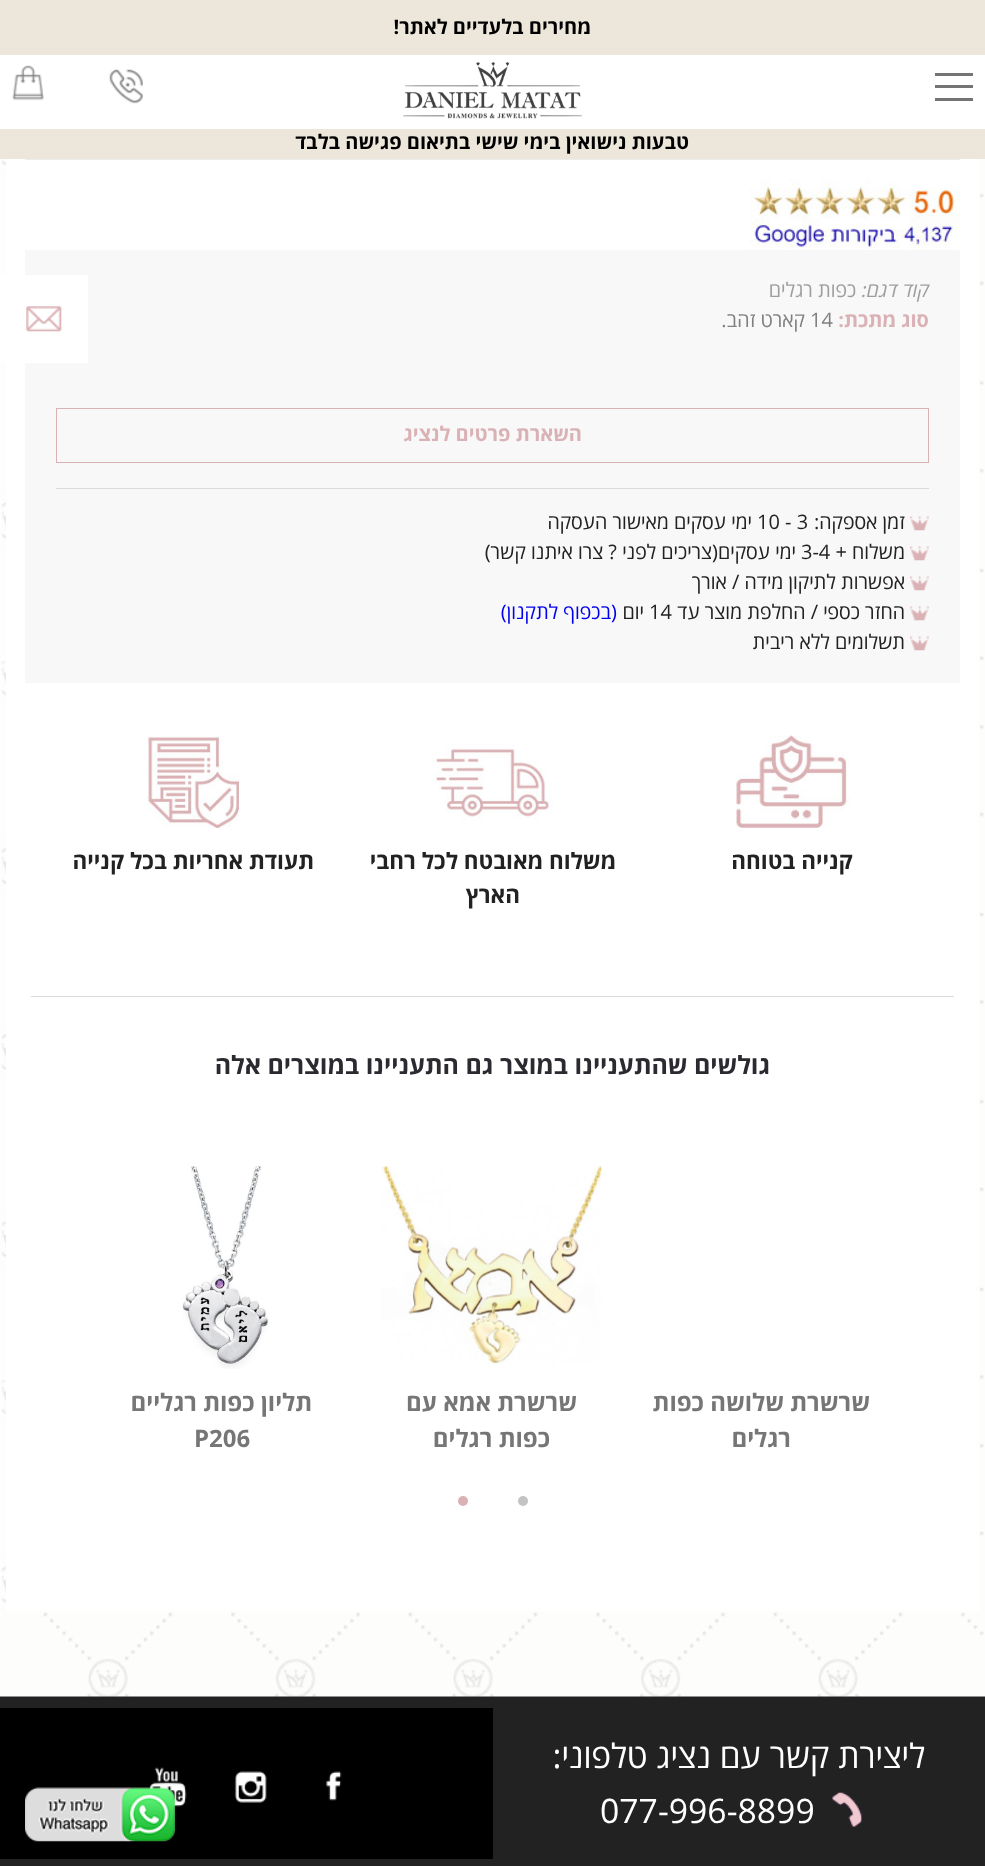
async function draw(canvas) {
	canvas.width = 985;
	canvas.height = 1866;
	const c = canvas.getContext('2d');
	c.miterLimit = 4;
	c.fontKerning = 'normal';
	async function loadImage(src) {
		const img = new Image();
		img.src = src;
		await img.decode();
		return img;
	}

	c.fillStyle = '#222';
	c.fillRect(0, 0, 985, 1866);
	c.drawImage(await loadImage('img1.png'), 0, 159, 985, 1538);
	c.fillStyle = '#fff';
	c.fillRect(6, 159, 973, 1452);
	c.strokeStyle = '#ededed';
	c.strokeRect(25.5, -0.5, 934, 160);
	c.fillRect(0, 55, 985, 74);
	c.fillStyle = '#ede7db';
	c.fillRect(0, 0, 985, 55);
	c.direction = 'rtl';
	c.font = 'bold 20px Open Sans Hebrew';
	c.fillStyle = '#000';
	c.fillText('מחירים בלעדיים לאתר!', 591, 34);
	for (const [x, y, w, h, color] of [
		[935, 98, 38, 3, '#747474'],
		[935, 85, 38, 3, '#747474'],
		[935, 73, 38, 3, '#747474'],
	]) {
		c.fillStyle = color;
		c.fillRect(x, y, w, h);
	}
	c.drawImage(await loadImage('img2.png'), 403, 62, 179, 57);
	c.drawImage(await loadImage('img3.png'), 109, 69, 34, 35);
	c.drawImage(await loadImage('img4.png'), 12, 65, 33, 36);
	c.fillStyle = '#ede7db';
	c.fillRect(0, 129, 985, 30);
	c.fillStyle = '#000';
	c.fillText('טבעות נישואין בימי שישי בתיאום פגישה בלבד', 689, 149);
	c.drawImage(await loadImage('img5.png'), 750, 179, 210, 71);
	c.fillStyle = '#f8f8f8';
	c.fillRect(25, 250, 935, 433);
	c.font = 'italic 20px Open Sans Hebrew';
	c.fillStyle = '#9e9e9e';
	c.fillText('קוד דגם:', 929, 297);
	c.font = '20px Open Sans Hebrew';
	c.fillText('כפות רגלים', 856, 297);
	c.font = 'bold 20px Open Sans Hebrew';
	c.fillStyle = '#dab1b4';
	c.fillText('סוג מתכת:', 929, 327);
	c.direction = 'ltr';
	c.font = '20px Open Sans Hebrew';
	c.fillStyle = '#808080';
	c.fillText('14', 810, 327);
	c.direction = 'rtl';
	c.fillText('קארט זהב.', 805, 327);
	c.fillStyle = '#dbdbdb';
	c.fillRect(56, 488, 873, 1);
	c.strokeStyle = '#dab1b4';
	c.strokeRect(56.5, 408.5, 872, 54);
	c.font = 'bold 20px Open Sans Hebrew';
	c.fillStyle = '#dab1b4';
	c.fillText('השארת פרטים לנציג', 582, 441);
	c.drawImage(await loadImage('img6.png'), 910, 516, 19, 15);
	c.font = '20px Open Sans Hebrew';
	c.fillStyle = '#222';
	c.fillText('זמן אספקה:', 905, 529);
	c.direction = 'ltr';
	c.fillText('10 - 3', 757, 529);
	c.direction = 'rtl';
	c.fillText('ימי עסקים מאישור העסקה', 752, 529);
	c.drawImage(await loadImage('img6.png'), 910, 546, 19, 15);
	c.fillText('משלוח +', 905, 559);
	c.direction = 'ltr';
	c.fillText('3-4', 801, 559);
	c.direction = 'rtl';
	c.fillText('ימי עסקים(צריכים לפני ? צרו איתנו קשר)', 796, 559);
	c.drawImage(await loadImage('img6.png'), 910, 576, 19, 15);
	c.fillText('אפשרות לתיקון מידה / אורך', 905, 589);
	c.drawImage(await loadImage('img6.png'), 910, 606, 19, 15);
	c.fillText('החזר כספי / החלפת מוצר עד', 905, 619);
	c.direction = 'ltr';
	c.fillText('14', 649, 619);
	c.direction = 'rtl';
	c.fillText('יום', 644, 619);
	c.fillStyle = '#00e';
	c.fillText('(בכפוף לתקנון)', 617, 619);
	c.drawImage(await loadImage('img6.png'), 910, 636, 19, 15);
	c.fillStyle = '#222';
	c.fillText('תשלומים ללא ריבית', 905, 649);
	c.drawImage(await loadImage('img7.png'), 736, 735, 114, 93);
	c.font = 'bold 22.5px Open Sans Hebrew';
	c.fillText('קנייה בטוחה', 853, 869);
	c.drawImage(await loadImage('img8.png'), 431, 743, 122, 77);
	c.fillText('משלוח מאובטח לכל רחבי', 616, 869);
	c.fillText('הארץ', 520, 903);
	c.drawImage(await loadImage('img9.png'), 147, 736, 92, 92);
	c.fillText('תעודת אחריות בכל קנייה', 314, 869);
	c.fillStyle = '#dbdbdb';
	c.fillRect(31, 996, 923, 1);
	c.font = 'bold 25px Open Sans Hebrew';
	c.fillStyle = '#2b2a30';
	c.fillText('גולשים שהתעניינו במוצר גם התעניינו במוצרים אלה', 770, 1074);
	c.font = 'bold 24px Open Sans Hebrew';
	c.fillStyle = '#767676';
	c.fillText('שרשרת שלושה כפות', 870, 1411);
	c.fillText('רגלים', 791, 1447);
	c.drawImage(await loadImage('img10.png'), 381, 1166, 221, 199);
	c.fillText('שרשרת אמא עם', 577, 1411);
	c.fillText('כפות רגלים', 550, 1447);
	c.drawImage(await loadImage('img11.png'), 182, 1166, 87, 203);
	c.fillText('תליון כפות רגליים', 312, 1411);
	c.direction = 'ltr';
	c.fillText('P206', 194, 1447);
	c.fillStyle = '#c3c3c3';
	c.beginPath();
	c.arc(523, 1501, 5, 0, 2 * Math.PI);
	c.fill();
	c.fillStyle = '#dab1b4';
	c.beginPath();
	c.arc(463, 1501, 5, 0, 2 * Math.PI);
	c.fill();
	c.fillStyle = '#fff';
	c.fillRect(0, 275, 88, 88);
	c.drawImage(await loadImage('img12.png'), 26, 306, 36, 26);
	c.fillStyle = '#000';
	c.fillRect(0, 1708, 493, 151);
	c.drawImage(await loadImage('img17.png'), 149, 1767, 38, 40);
	c.drawImage(await loadImage('img13.png'), 25, 1787, 150, 55);
	c.direction = 'rtl';
	c.font = '33.75px Open Sans Hebrew';
	c.fillStyle = '#fff';
	c.fillText('ליצירת קשר עם נציג טלפוני:', 925, 1768);
	c.drawImage(await loadImage('img14.png'), 832, 1792, 30, 35);
	c.direction = 'ltr';
	c.fillText('077-996-8899', 600, 1823);
	c.drawImage(await loadImage('img15.png'), 326, 1771, 16, 30);
	c.drawImage(await loadImage('img16.png'), 234, 1771, 33, 32);
}

draw(document.querySelector('canvas'));
